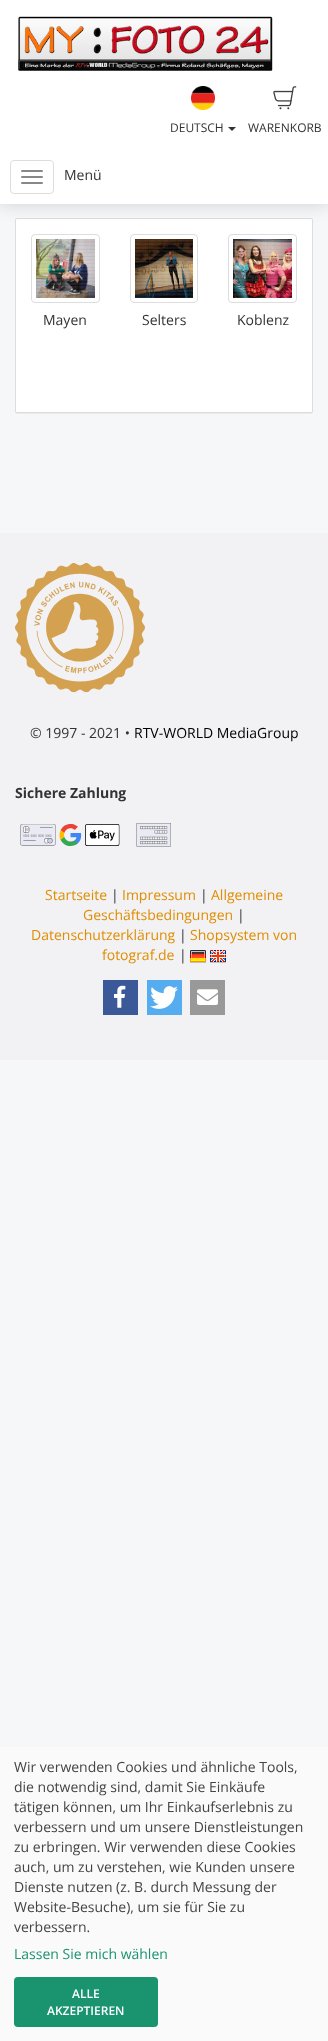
async function draw(canvas) {
	canvas.width = 328;
	canvas.height = 2041;
	const c = canvas.getContext('2d');
	c.miterLimit = 4;
	c.fontKerning = 'normal';
	async function loadImage(src) {
		const img = new Image();
		img.src = src;
		await img.decode();
		return img;
	}

	c.fillStyle = '#f6f7f8';
	c.fillRect(0, 0, 328, 2041);
	c.fillStyle = '#0000000d';
	c.filter = 'blur(0.5px)';
	c.beginPath();
	c.roundRect(15, 219, 298, 195, 2);
	c.fill();
	c.filter = 'none';
	c.fillStyle = '#fff';
	c.beginPath();
	c.roundRect(15.5, 218.5, 297, 194, 1.5);
	c.fill();
	c.strokeStyle = '#ddd';
	c.stroke();
	c.fillStyle = '#00000024';
	c.filter = 'blur(8.5px)';
	c.beginPath();
	c.rect(-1, 149, 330, 56);
	c.fill();
	c.filter = 'none';
	c.fillStyle = '#fff';
	c.fillRect(0, 0, 328, 204);
	c.drawImage(await loadImage('img1.png'), 18, 16, 255, 55);
	c.drawImage(await loadImage('img2.png'), 191, 86, 24, 24);
	c.font = '12px Open Sans';
	c.fillStyle = '#333';
	c.fillText('DEUTSCH', 170, 132);
	c.beginPath();
	c.moveTo(228, 127);
	c.lineTo(236, 127);
	c.lineTo(232, 131);
	c.closePath();
	c.fill();
	c.drawImage(await loadImage('img3.png'), 273, 86, 24, 24);
	c.fillText('WARENKORB', 248, 132);
	c.beginPath();
	c.roundRect(10.5, 160.5, 43, 33, 3.5);
	c.stroke();
	c.fillStyle = '#888';
	c.beginPath();
	c.roundRect(21, 170, 22, 2, 1);
	c.fill();
	c.beginPath();
	c.roundRect(21, 176, 22, 2, 1);
	c.fill();
	c.beginPath();
	c.roundRect(21, 182, 22, 2, 1);
	c.fill();
	c.font = '14px Open Sans';
	c.fillStyle = '#333';
	c.fillText('Menü', 64, 180);
	c.beginPath();
	c.roundRect(31.5, 234.5, 68, 68, 3.5);
	c.stroke();
	c.drawImage(await loadImage('img4.png'), 36, 239, 59, 59);
	c.fillText('Mayen', 43, 325);
	c.beginPath();
	c.roundRect(130.5, 234.5, 67, 68, 3.5);
	c.stroke();
	c.drawImage(await loadImage('img5.png'), 135, 239, 58, 59);
	c.fillText('Selters', 142, 325);
	c.beginPath();
	c.roundRect(228.5, 234.5, 68, 68, 3.5);
	c.stroke();
	c.drawImage(await loadImage('img6.png'), 233, 239, 59, 59);
	c.fillText('Koblenz', 237, 325);
	c.fillStyle = '#f2f1f4';
	c.fillRect(0, 533, 328, 527);
	c.drawImage(await loadImage('img7.png'), 15, 563, 130, 130);
	c.fillStyle = '#333';
	c.fillText('© 1997 - 2021 •', 30, 738);
	c.fillStyle = '#000';
	c.fillText('RTV-WORLD MediaGroup', 134, 738);
	c.font = 'bold 14px Open Sans';
	c.fillStyle = '#333';
	c.fillText('Sichere Zahlung', 15, 798);
	c.drawImage(await loadImage('img8.png'), 20, 824, 100, 22);
	c.drawImage(await loadImage('img9.png'), 136, 823, 35, 24);
	c.font = '14px Open Sans';
	c.fillStyle = '#e08e00';
	c.fillText('Startseite', 45, 900);
	c.fillStyle = '#333';
	c.fillText('|', 111, 900);
	c.fillStyle = '#e08e00';
	c.fillText('Impressum', 122, 900);
	c.fillStyle = '#333';
	c.fillText('|', 200, 900);
	c.fillStyle = '#e08e00';
	c.fillText('Allgemeine', 211, 900);
	c.fillText('Geschäftsbedingungen', 83, 920);
	c.fillStyle = '#333';
	c.fillText('|', 237, 920);
	c.fillStyle = '#e08e00';
	c.fillText('Datenschutzerklärung', 31, 940);
	c.fillStyle = '#333';
	c.fillText('|', 179, 940);
	c.fillStyle = '#e08e00';
	c.fillText('Shopsystem von', 190, 940);
	c.fillText('fotograf.de', 102, 960);
	c.fillStyle = '#333';
	c.fillText('|', 179, 960);
	c.drawImage(await loadImage('img10.png'), 190, 950, 16, 13);
	c.drawImage(await loadImage('img11.png'), 210, 950, 16, 13);
	c.fillStyle = '#3b5998';
	c.fillRect(103, 980, 35, 35);
	c.drawImage(await loadImage('img12.png'), 114, 985, 12, 23);
	c.fillStyle = '#55acee';
	c.fillRect(147, 980, 35, 35);
	c.drawImage(await loadImage('img13.png'), 150, 986, 28, 23);
	c.fillStyle = '#999';
	c.fillRect(190, 980, 35, 35);
	c.drawImage(await loadImage('img14.png'), 197, 989, 21, 16);
	c.fillStyle = '#fafafa';
	c.fillRect(0, 1747, 328, 294);
	c.fillStyle = '#444';
	for (const [text, x, y] of [
		['Wir verwenden Cookies und ähnliche Tools,', 14, 1772],
		['die notwendig sind, damit Sie Einkäufe', 14, 1792],
		['tätigen können, um Ihr Einkaufserlebnis zu', 14, 1812],
		['verbessern und um unsere Dienstleistungen', 14, 1832],
		['zu erbringen. Wir verwenden diese Cookies', 14, 1852],
		['auch, um zu verstehen, wie Kunden unsere', 14, 1872],
		['Dienste nutzen (z. B. durch Messung der', 14, 1892],
		['Website-Besuche), um sie für Sie zu', 14, 1912],
		['verbessern.', 14, 1932],
	]) {
		c.fillText(text, x, y);
	}
	c.fillStyle = '#1a936f';
	c.fillText('Lassen Sie mich wählen', 14, 1959);
	c.beginPath();
	c.roundRect(14, 1977, 144, 50, 4);
	c.fill();
	c.font = '600 12px Open Sans';
	c.fillStyle = '#fff';
	c.fillText('ALLE', 72, 1998);
	c.fillText('AKZEPTIEREN', 47, 2015);
}

draw(document.querySelector('canvas'));
